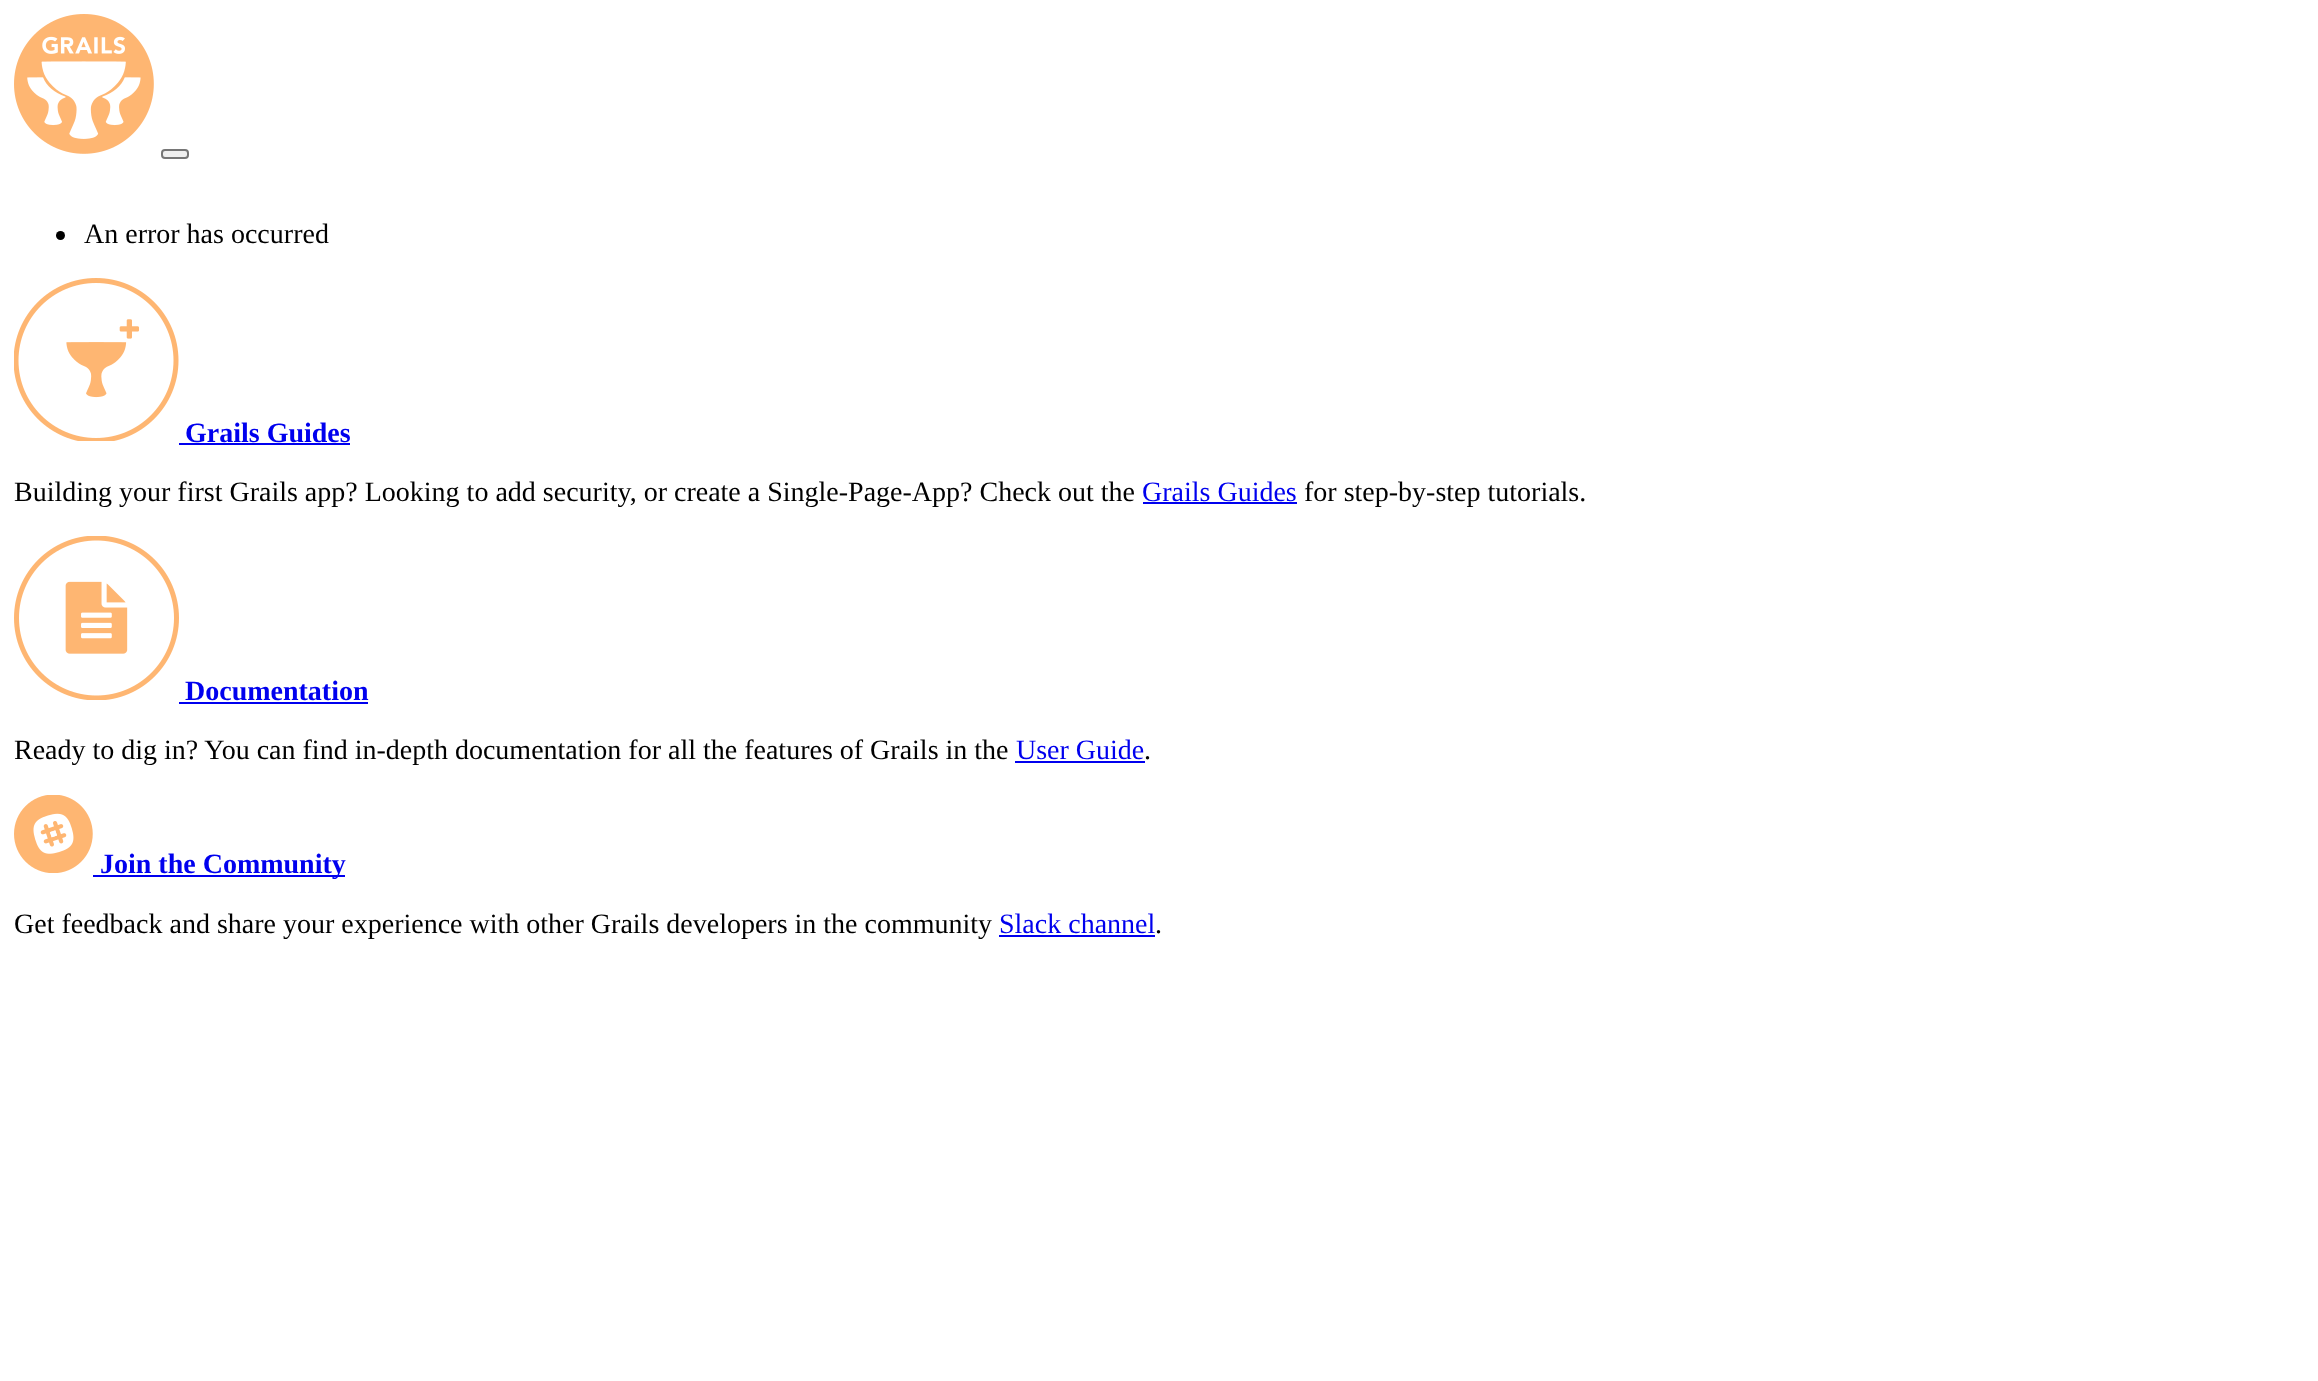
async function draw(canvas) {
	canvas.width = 2318;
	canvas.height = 1381;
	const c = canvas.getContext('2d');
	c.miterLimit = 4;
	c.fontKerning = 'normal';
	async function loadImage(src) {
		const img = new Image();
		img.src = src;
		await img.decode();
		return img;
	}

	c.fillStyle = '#fff';
	c.fillRect(0, 0, 2318, 1381);
	c.drawImage(await loadImage('img1.png'), 14, 14, 140, 140);
	c.fillStyle = '#efefef';
	c.beginPath();
	c.roundRect(162, 150, 26, 8, 3);
	c.fill();
	c.strokeStyle = '#767676';
	c.lineWidth = 2;
	c.stroke();
	c.fillStyle = '#000';
	c.beginPath();
	c.arc(60.5, 235.5, 4.5, 0, 2 * Math.PI);
	c.fill();
	c.font = '28px Liberation Serif';
	c.fillText('An error has occurred', 84, 243);
	c.drawImage(await loadImage('img2.png'), 14, 278, 165, 163);
	c.font = 'bold 28px Liberation Serif';
	c.fillStyle = '#00e';
	c.fillText('Grails Guides', 185, 442);
	c.fillRect(179, 443, 171, 2);
	c.font = '28px Liberation Serif';
	c.fillStyle = '#000';
	c.fillText('Building your first Grails app? Looking to add security, or create a Single-Page-App? Check out the', 14, 501);
	c.fillStyle = '#00e';
	c.fillText('Grails Guides', 1142, 501);
	c.fillRect(1143, 502, 154, 2);
	c.fillStyle = '#000';
	c.fillText('for step-by-step tutorials.', 1304, 501);
	c.drawImage(await loadImage('img3.png'), 14, 536, 165, 164);
	c.font = 'bold 28px Liberation Serif';
	c.fillStyle = '#00e';
	c.fillText('Documentation', 185, 700);
	c.fillRect(179, 702, 189, 2);
	c.font = '28px Liberation Serif';
	c.fillStyle = '#000';
	c.fillText('Ready to dig in? You can find in-depth documentation for all the features of Grails in the', 14, 759);
	c.fillStyle = '#00e';
	c.fillText('User Guide', 1016, 759);
	c.fillRect(1015, 761, 130, 2);
	c.fillStyle = '#000';
	c.fillText('.', 1144, 759);
	c.drawImage(await loadImage('img4.png'), 14, 795, 79, 78);
	c.fillStyle = '#00e';
	c.fillRect(93, 875, 252, 2);
	c.font = 'bold 28px Liberation Serif';
	c.fillText('Join the Community', 100, 873);
	c.font = '28px Liberation Serif';
	c.fillStyle = '#000';
	c.fillText('Get feedback and share your experience with other Grails developers in the community', 14, 933);
	c.fillStyle = '#00e';
	c.fillText('Slack channel', 999, 933);
	c.fillRect(999, 935, 156, 2);
	c.fillStyle = '#000';
	c.fillText('.', 1155, 933);
}

draw(document.querySelector('canvas'));
